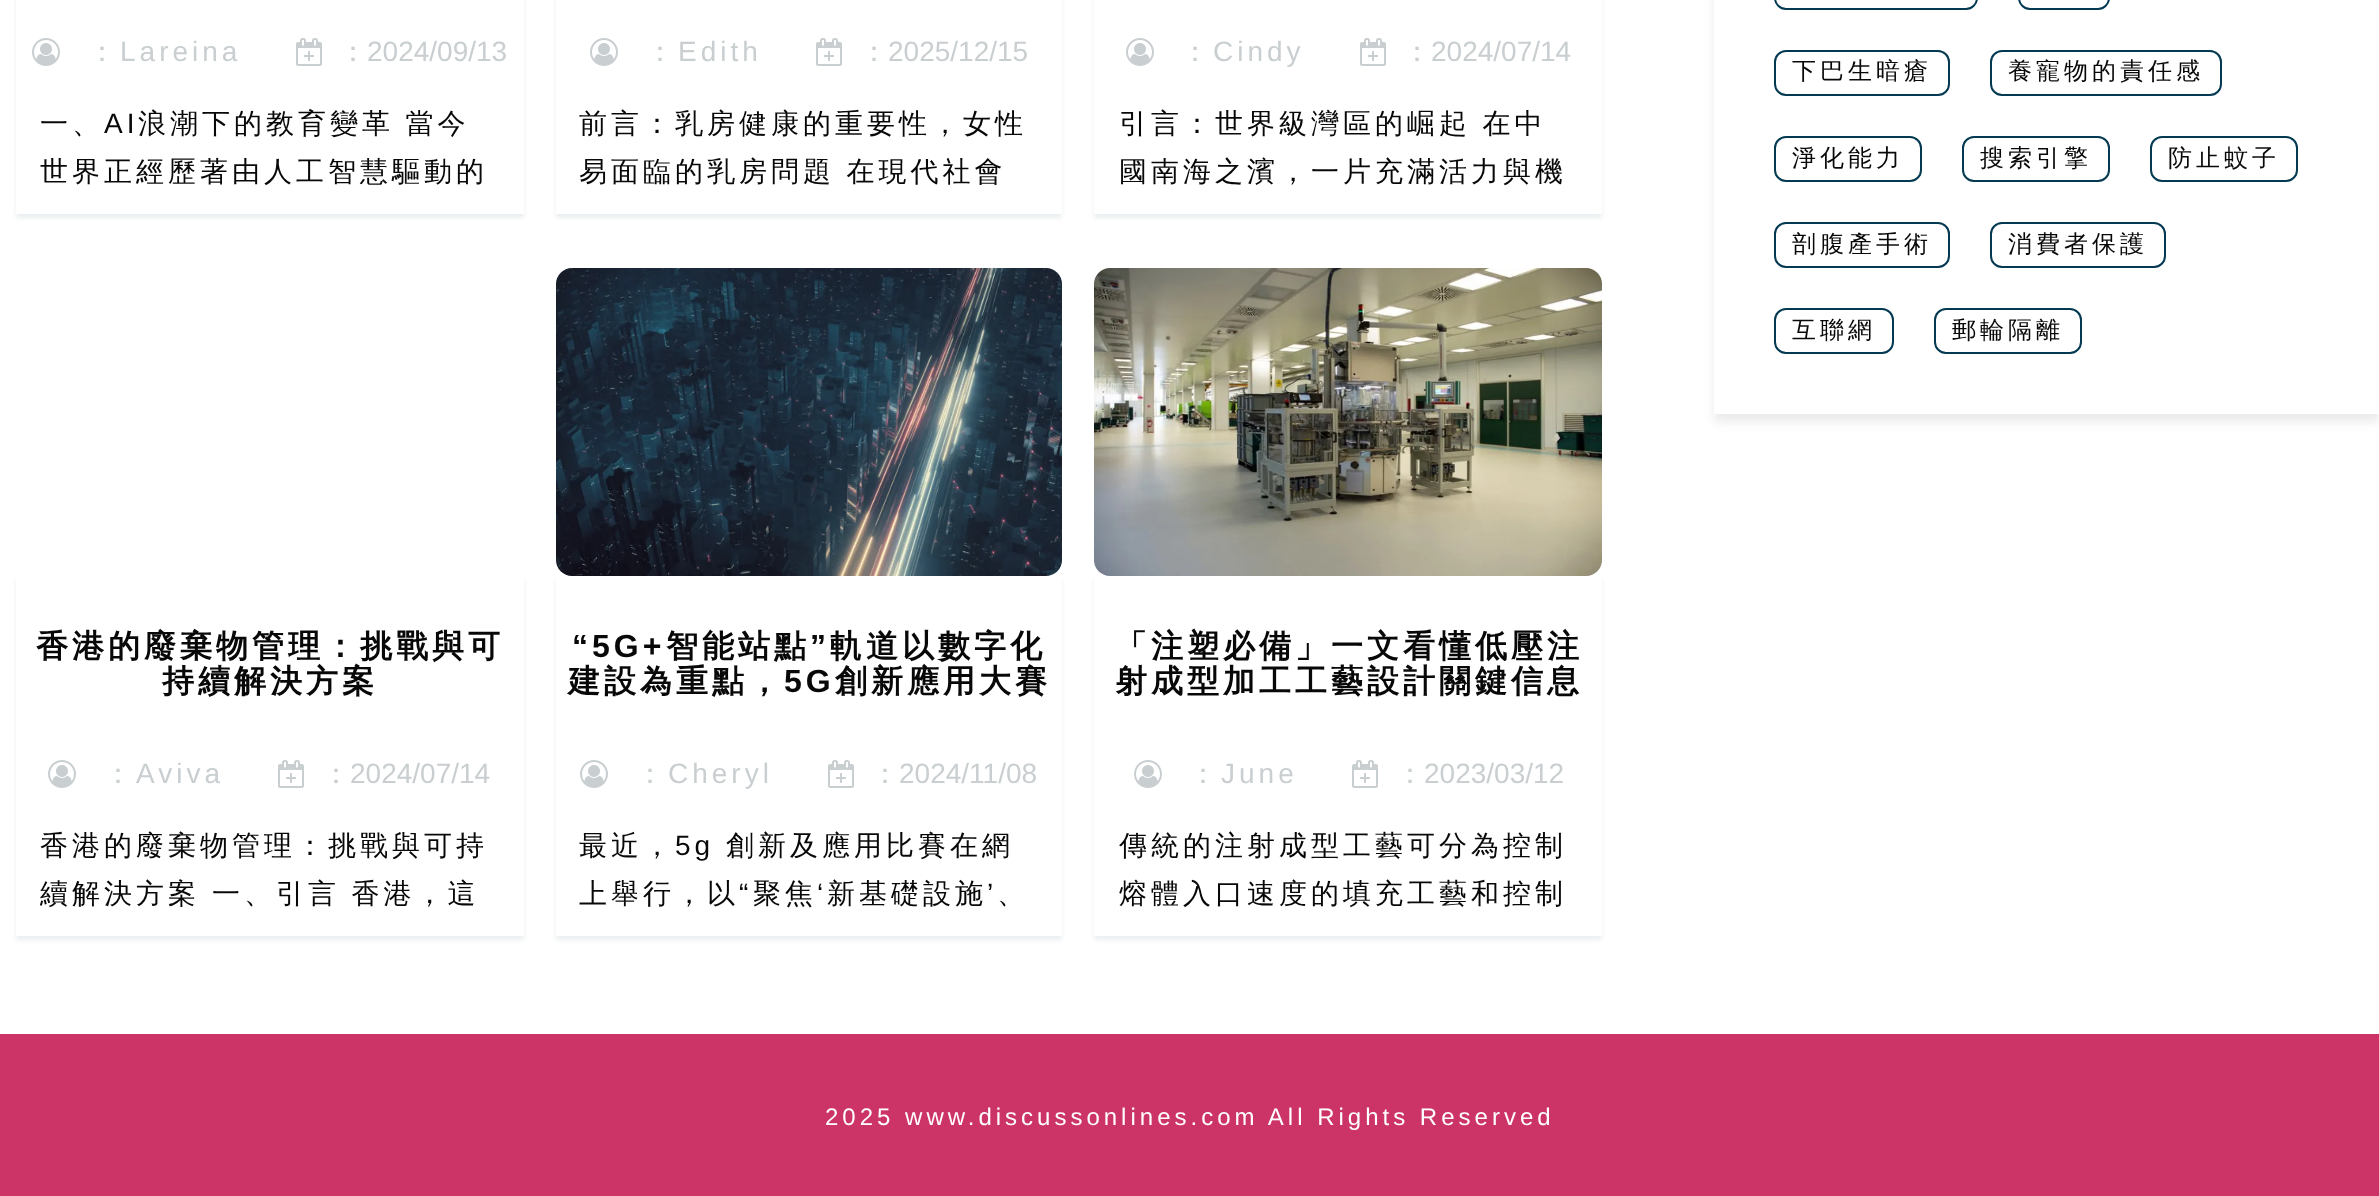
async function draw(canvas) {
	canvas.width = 2379;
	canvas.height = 1196;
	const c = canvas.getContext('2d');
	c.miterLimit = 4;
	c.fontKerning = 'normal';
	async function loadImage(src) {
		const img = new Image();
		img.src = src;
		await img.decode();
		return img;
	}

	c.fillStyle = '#fff';
	c.fillRect(0, 0, 2379, 1196);
	c.save();
	c.beginPath();
	c.moveTo(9, 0);
	c.lineTo(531, 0);
	c.lineTo(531, 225);
	c.lineTo(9, 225);
	c.closePath();
	c.moveTo(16, -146);
	c.lineTo(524, -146);
	c.lineTo(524, 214);
	c.lineTo(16, 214);
	c.closePath();
	c.clip('evenodd');
	c.fillStyle = '#03395114';
	c.filter = 'blur(2px)';
	c.beginPath();
	c.rect(16, -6, 508, 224);
	c.fill();
	c.filter = 'none';
	c.restore();
	c.drawImage(await loadImage('img1.png'), 32, 38, 28, 28);
	c.letterSpacing = '4px';
	c.font = '500 28px WenQuanYi Zen Hei';
	c.fillStyle = '#c9ced0';
	c.fillText('：', 88, 61);
	c.font = '28px Liberation Sans';
	c.fillText('Lareina', 120, 61);
	c.drawImage(await loadImage('img2.png'), 296, 38, 26, 28);
	c.letterSpacing = '0px';
	c.font = '500 28px WenQuanYi Zen Hei';
	c.fillText('：', 339, 61);
	c.font = '28px Liberation Sans';
	c.fillText('2024/09/13', 367, 61);
	c.letterSpacing = '4px';
	c.font = '500 28px WenQuanYi Zen Hei';
	c.fillStyle = '#080808';
	c.fillText('一、', 40, 133);
	c.font = '28px Liberation Sans';
	c.fillText('AI', 104, 133);
	c.wordSpacing = '-1px';
	c.font = '500 28px WenQuanYi Zen Hei';
	c.fillText('浪潮下的教育變革 當今', 138, 133);
	c.wordSpacing = '0px';
	c.fillText('世界正經歷著由人工智慧驅動的', 40, 181);
	c.save();
	c.beginPath();
	c.moveTo(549, 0);
	c.lineTo(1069, 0);
	c.lineTo(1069, 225);
	c.lineTo(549, 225);
	c.closePath();
	c.moveTo(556, -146);
	c.lineTo(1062, -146);
	c.lineTo(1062, 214);
	c.lineTo(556, 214);
	c.closePath();
	c.clip('evenodd');
	c.fillStyle = '#03395114';
	c.filter = 'blur(2px)';
	c.beginPath();
	c.rect(556, -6, 506, 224);
	c.fill();
	c.filter = 'none';
	c.restore();
	c.drawImage(await loadImage('img1.png'), 590, 38, 28, 28);
	c.fillStyle = '#c9ced0';
	c.fillText('：', 646, 61);
	c.font = '28px Liberation Sans';
	c.fillText('Edith', 678, 61);
	c.drawImage(await loadImage('img2.png'), 816, 38, 26, 28);
	c.letterSpacing = '0px';
	c.font = '500 28px WenQuanYi Zen Hei';
	c.fillText('：', 860, 61);
	c.font = '28px Liberation Sans';
	c.fillText('2025/12/15', 888, 61);
	c.letterSpacing = '4px';
	c.font = '500 28px WenQuanYi Zen Hei';
	c.fillStyle = '#080808';
	c.fillText('前言：乳房健康的重要性，女性', 579, 133);
	c.wordSpacing = '-1px';
	c.fillText('易面臨的乳房問題 在現代社會', 579, 181);
	c.save();
	c.beginPath();
	c.moveTo(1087, 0);
	c.lineTo(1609, 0);
	c.lineTo(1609, 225);
	c.lineTo(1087, 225);
	c.closePath();
	c.moveTo(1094, -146);
	c.lineTo(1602, -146);
	c.lineTo(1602, 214);
	c.lineTo(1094, 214);
	c.closePath();
	c.clip('evenodd');
	c.fillStyle = '#03395114';
	c.filter = 'blur(2px)';
	c.beginPath();
	c.rect(1094, -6, 508, 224);
	c.fill();
	c.filter = 'none';
	c.restore();
	c.drawImage(await loadImage('img1.png'), 1126, 38, 28, 28);
	c.wordSpacing = '0px';
	c.fillStyle = '#c9ced0';
	c.fillText('：', 1181, 61);
	c.font = '28px Liberation Sans';
	c.fillText('Cindy', 1213, 61);
	c.drawImage(await loadImage('img2.png'), 1360, 38, 26, 28);
	c.letterSpacing = '0px';
	c.font = '500 28px WenQuanYi Zen Hei';
	c.fillText('：', 1403, 61);
	c.font = '28px Liberation Sans';
	c.fillText('2024/07/14', 1431, 61);
	c.letterSpacing = '4px';
	c.wordSpacing = '-1px';
	c.font = '500 28px WenQuanYi Zen Hei';
	c.fillStyle = '#080808';
	c.fillText('引言：世界級灣區的崛起 在中', 1119, 133);
	c.wordSpacing = '0px';
	c.fillText('國南海之濱，一片充滿活力與機', 1119, 181);
	c.save();
	c.beginPath();
	c.moveTo(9, 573);
	c.lineTo(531, 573);
	c.lineTo(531, 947);
	c.lineTo(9, 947);
	c.closePath();
	c.moveTo(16, 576);
	c.lineTo(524, 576);
	c.lineTo(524, 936);
	c.lineTo(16, 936);
	c.closePath();
	c.clip('evenodd');
	c.fillStyle = '#03395114';
	c.filter = 'blur(2px)';
	c.beginPath();
	c.rect(16, 580, 508, 360);
	c.fill();
	c.filter = 'none';
	c.restore();
	c.font = 'bold 32px WenQuanYi Zen Hei';
	c.fillText('香港的廢棄物管理：挑戰與可', 36, 657);
	c.fillText('持續解決方案', 162, 692);
	c.drawImage(await loadImage('img1.png'), 48, 760, 28, 28);
	c.font = '500 28px WenQuanYi Zen Hei';
	c.fillStyle = '#c9ced0';
	c.fillText('：', 104, 783);
	c.font = '28px Liberation Sans';
	c.fillText('Aviva', 136, 783);
	c.drawImage(await loadImage('img2.png'), 278, 760, 26, 28);
	c.letterSpacing = '0px';
	c.font = '500 28px WenQuanYi Zen Hei';
	c.fillText('：', 322, 783);
	c.font = '28px Liberation Sans';
	c.fillText('2024/07/14', 350, 783);
	c.letterSpacing = '4px';
	c.font = '500 28px WenQuanYi Zen Hei';
	c.fillStyle = '#080808';
	c.fillText('香港的廢棄物管理：挑戰與可持', 40, 855);
	c.fillText('續解決方案', 40, 903);
	c.wordSpacing = '-1px';
	c.fillText('一、引言 香港，這', 212, 903);
	c.drawImage(await loadImage('img3.png'), 556, 268, 506, 308);
	c.save();
	c.beginPath();
	c.moveTo(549, 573);
	c.lineTo(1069, 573);
	c.lineTo(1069, 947);
	c.lineTo(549, 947);
	c.closePath();
	c.moveTo(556, 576);
	c.lineTo(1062, 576);
	c.lineTo(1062, 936);
	c.lineTo(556, 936);
	c.closePath();
	c.clip('evenodd');
	c.fillStyle = '#03395114';
	c.filter = 'blur(2px)';
	c.beginPath();
	c.rect(556, 580, 506, 360);
	c.fill();
	c.filter = 'none';
	c.restore();
	c.wordSpacing = '0px';
	c.font = 'bold 32px Liberation Sans';
	c.fillText('“5G+', 572, 657);
	c.font = 'bold 32px WenQuanYi Zen Hei';
	c.fillText('智能站點', 666, 657);
	c.font = 'bold 32px Liberation Sans';
	c.fillText('”', 810, 657);
	c.font = 'bold 32px WenQuanYi Zen Hei';
	c.fillText('軌道以數字化', 830, 657);
	c.fillText('建設為重點，', 568, 692);
	c.font = 'bold 32px Liberation Sans';
	c.fillText('5G', 784, 692);
	c.font = 'bold 32px WenQuanYi Zen Hei';
	c.fillText('創新應用大賽', 835, 692);
	c.drawImage(await loadImage('img1.png'), 580, 760, 28, 28);
	c.font = '500 28px WenQuanYi Zen Hei';
	c.fillStyle = '#c9ced0';
	c.fillText('：', 636, 783);
	c.font = '28px Liberation Sans';
	c.fillText('Cheryl', 668, 783);
	c.drawImage(await loadImage('img2.png'), 828, 760, 26, 28);
	c.letterSpacing = '0px';
	c.font = '500 28px WenQuanYi Zen Hei';
	c.fillText('：', 871, 783);
	c.font = '28px Liberation Sans';
	c.fillText('2024/11/08', 899, 783);
	c.letterSpacing = '4px';
	c.font = '500 28px WenQuanYi Zen Hei';
	c.fillStyle = '#080808';
	c.fillText('最近，', 579, 855);
	c.font = '28px Liberation Sans';
	c.fillText('5g', 675, 855);
	c.font = '500 28px WenQuanYi Zen Hei';
	c.fillText('創新及應用比賽在網', 726, 855);
	c.fillText('上舉行，以', 579, 903);
	c.font = '28px Liberation Sans';
	c.fillText('“', 739, 903);
	c.font = '500 28px WenQuanYi Zen Hei';
	c.fillText('聚焦', 753, 903);
	c.font = '28px Liberation Sans';
	c.fillText('‘', 817, 903);
	c.font = '500 28px WenQuanYi Zen Hei';
	c.fillText('新基礎設施', 827, 903);
	c.font = '28px Liberation Sans';
	c.fillText('’', 987, 903);
	c.font = '500 28px WenQuanYi Zen Hei';
	c.fillText('、', 997, 903);
	c.drawImage(await loadImage('img4.png'), 1094, 268, 508, 308);
	c.save();
	c.beginPath();
	c.moveTo(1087, 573);
	c.lineTo(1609, 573);
	c.lineTo(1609, 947);
	c.lineTo(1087, 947);
	c.closePath();
	c.moveTo(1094, 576);
	c.lineTo(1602, 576);
	c.lineTo(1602, 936);
	c.lineTo(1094, 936);
	c.closePath();
	c.clip('evenodd');
	c.fillStyle = '#03395114';
	c.filter = 'blur(2px)';
	c.beginPath();
	c.rect(1094, 580, 508, 360);
	c.fill();
	c.filter = 'none';
	c.restore();
	c.font = 'bold 32px WenQuanYi Zen Hei';
	c.fillText('「注塑必備」一文看懂低壓注', 1115, 657);
	c.fillText('射成型加工工藝設計關鍵信息', 1115, 692);
	c.drawImage(await loadImage('img1.png'), 1134, 760, 28, 28);
	c.font = '500 28px WenQuanYi Zen Hei';
	c.fillStyle = '#c9ced0';
	c.fillText('：', 1189, 783);
	c.font = '28px Liberation Sans';
	c.fillText('June', 1221, 783);
	c.drawImage(await loadImage('img2.png'), 1352, 760, 26, 28);
	c.letterSpacing = '0px';
	c.font = '500 28px WenQuanYi Zen Hei';
	c.fillText('：', 1396, 783);
	c.font = '28px Liberation Sans';
	c.fillText('2023/03/12', 1424, 783);
	c.letterSpacing = '4px';
	c.font = '500 28px WenQuanYi Zen Hei';
	c.fillStyle = '#080808';
	c.fillText('傳統的注射成型工藝可分為控制', 1119, 855);
	c.fillText('熔體入口速度的填充工藝和控制', 1119, 903);
	c.save();
	c.beginPath();
	c.moveTo(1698, 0);
	c.lineTo(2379, 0);
	c.lineTo(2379, 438);
	c.lineTo(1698, 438);
	c.closePath();
	c.moveTo(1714, -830);
	c.lineTo(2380, -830);
	c.lineTo(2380, 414);
	c.lineTo(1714, 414);
	c.closePath();
	c.clip('evenodd');
	c.fillStyle = '#00000014';
	c.filter = 'blur(5px)';
	c.beginPath();
	c.rect(1714, -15, 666, 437);
	c.fill();
	c.filter = 'none';
	c.restore();
	c.beginPath();
	c.roundRect(1775, -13, 202, 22, 11);
	c.strokeStyle = '#033951';
	c.lineWidth = 2;
	c.stroke();
	c.beginPath();
	c.roundRect(2019, -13, 90, 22, 11);
	c.stroke();
	c.beginPath();
	c.roundRect(1775, 51, 174, 44, 11);
	c.stroke();
	c.font = '500 24px WenQuanYi Zen Hei';
	c.fillText('下巴生暗瘡', 1792, 79);
	c.beginPath();
	c.roundRect(1991, 51, 230, 44, 11);
	c.stroke();
	c.fillText('養寵物的責任感', 2008, 79);
	c.beginPath();
	c.roundRect(1775, 137, 146, 44, 11);
	c.stroke();
	c.fillText('淨化能力', 1792, 166);
	c.beginPath();
	c.roundRect(1963, 137, 146, 44, 11);
	c.stroke();
	c.fillText('搜索引擎', 1980, 166);
	c.beginPath();
	c.roundRect(2151, 137, 146, 44, 11);
	c.stroke();
	c.fillText('防止蚊子', 2168, 166);
	c.beginPath();
	c.roundRect(1775, 223, 174, 44, 11);
	c.stroke();
	c.fillText('剖腹產手術', 1792, 252);
	c.beginPath();
	c.roundRect(1991, 223, 174, 44, 11);
	c.stroke();
	c.fillText('消費者保護', 2008, 252);
	c.beginPath();
	c.roundRect(1775, 309, 118, 44, 11);
	c.stroke();
	c.fillText('互聯網', 1792, 338);
	c.beginPath();
	c.roundRect(1935, 309, 146, 44, 11);
	c.stroke();
	c.fillText('郵輪隔離', 1952, 338);
	c.fillStyle = '#c36';
	c.fillRect(0, 1034, 2379, 162);
	c.font = '24px Liberation Sans';
	c.fillStyle = '#fff';
	c.fillText('2025 www.discussonlines.com All Rights Reserved', 825, 1125);
}

draw(document.querySelector('canvas'));
